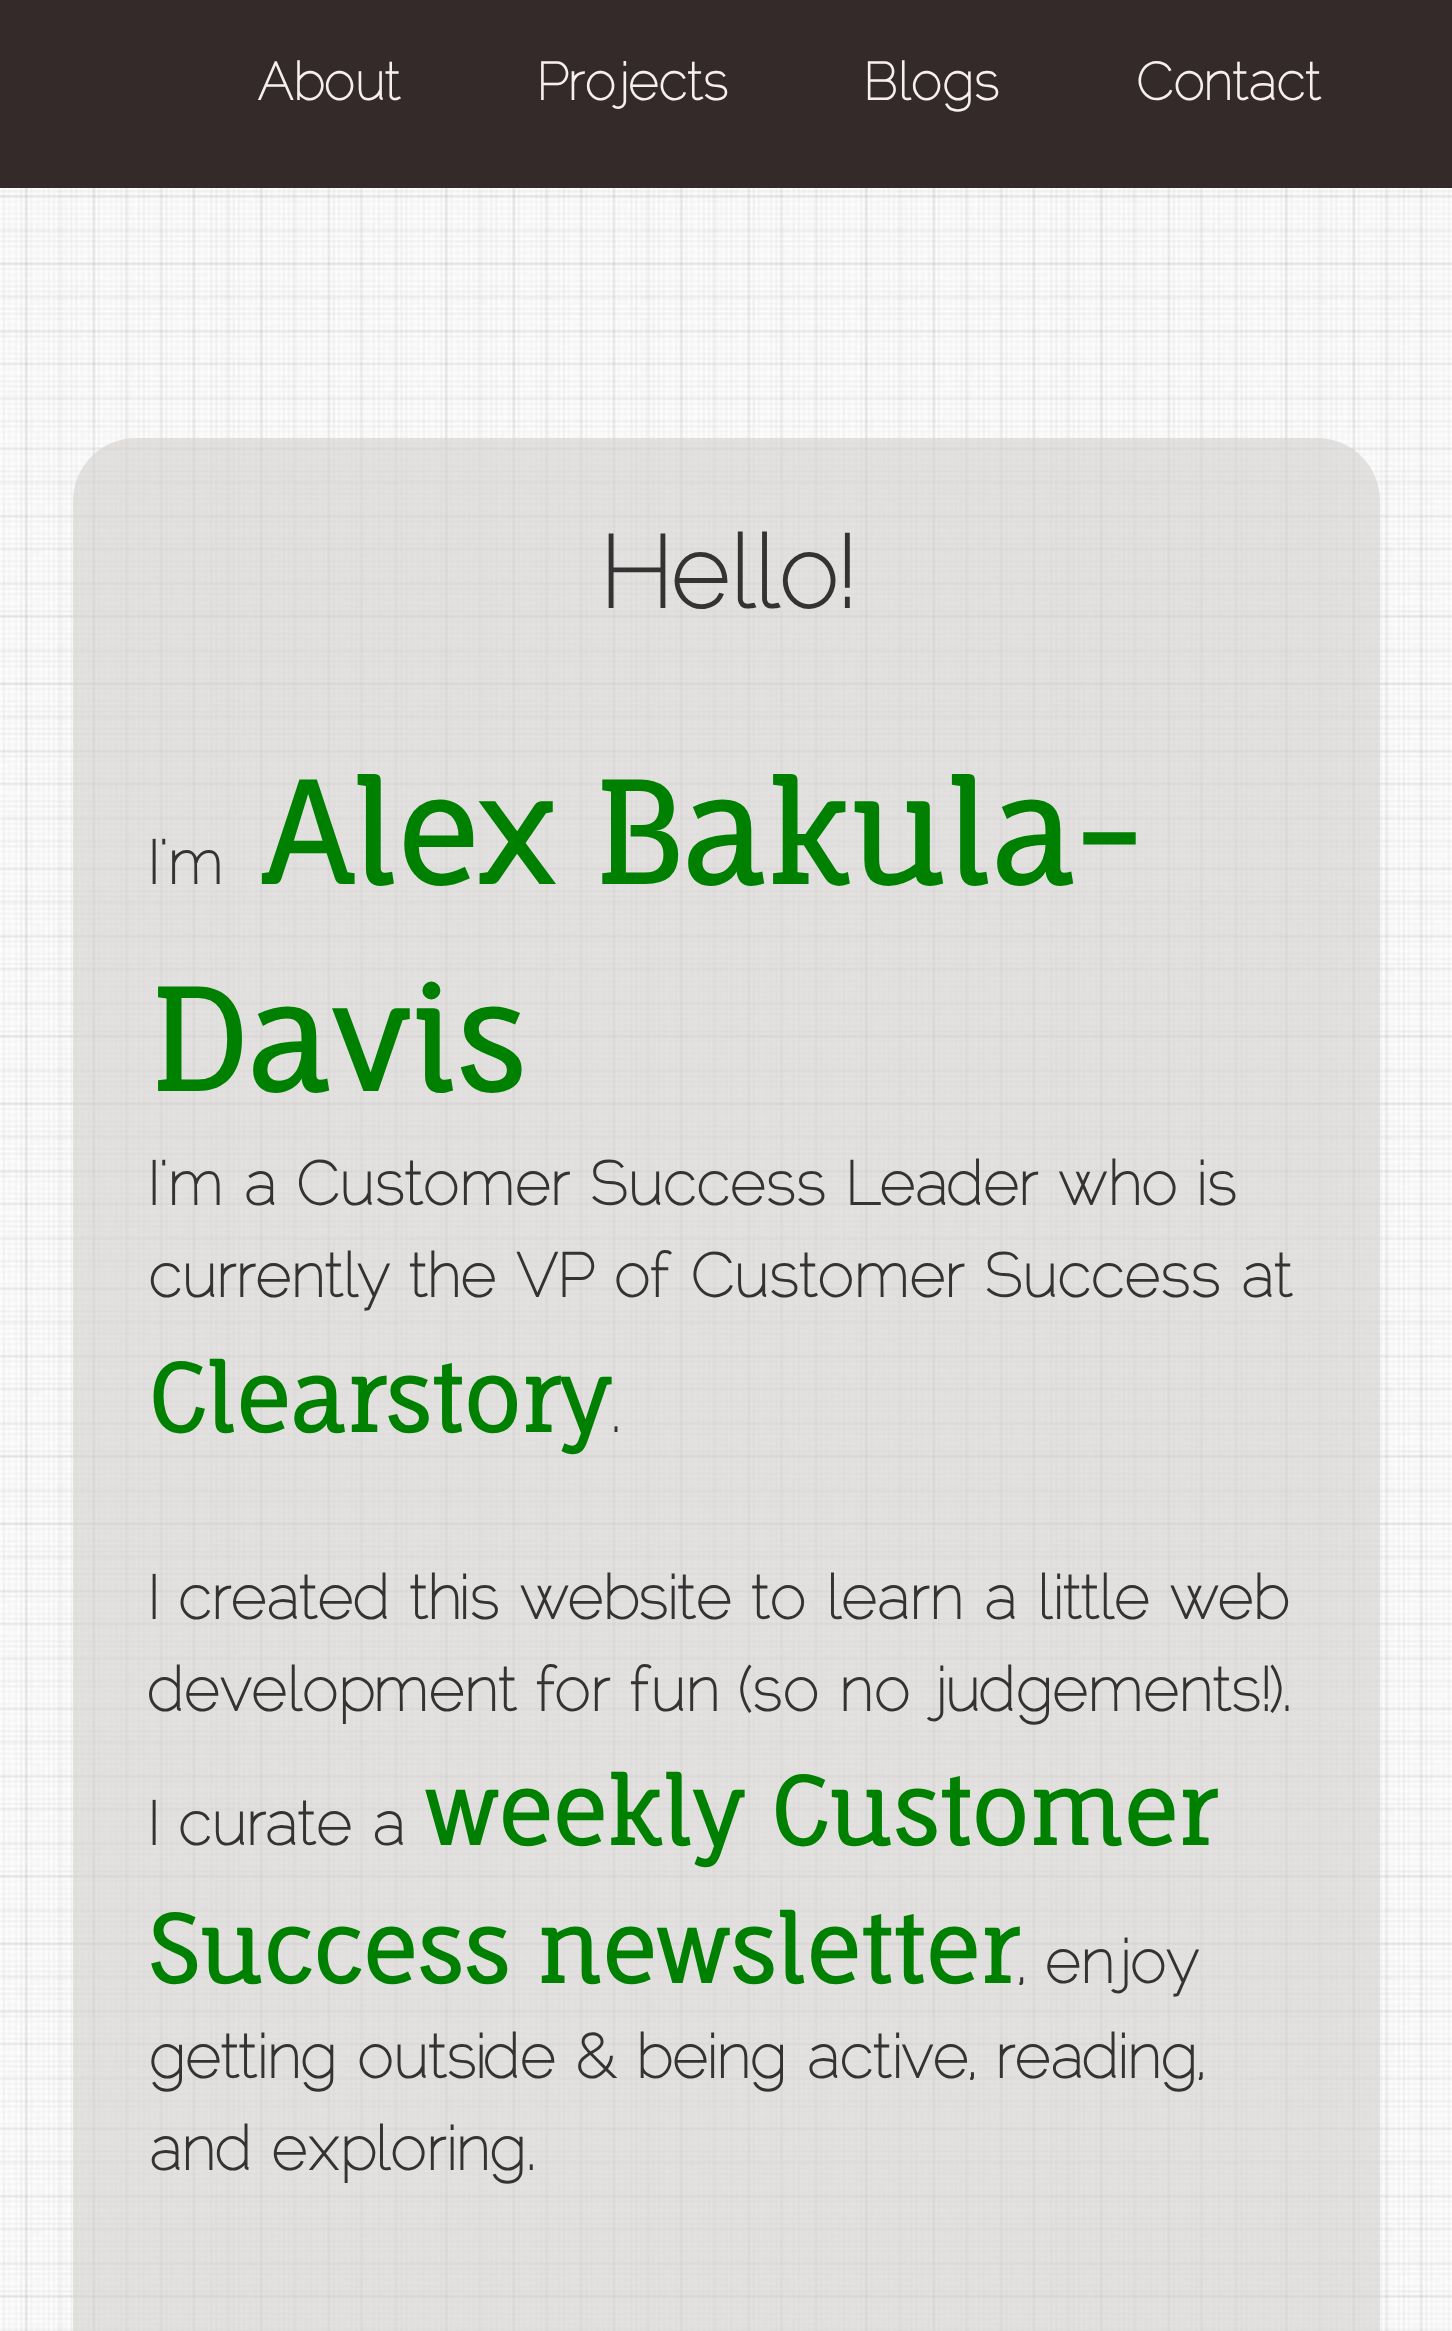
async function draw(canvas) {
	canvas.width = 1452;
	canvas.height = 2331;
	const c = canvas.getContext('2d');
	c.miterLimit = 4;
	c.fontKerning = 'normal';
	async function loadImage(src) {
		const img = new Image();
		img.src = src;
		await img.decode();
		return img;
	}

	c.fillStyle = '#fff';
	c.fillRect(0, 0, 1452, 2331);
	c.drawImage(await loadImage('img1.png'), 0, 188, 1452, 2143);
	c.fillStyle = '#352a2a';
	c.fillRect(0, 0, 1452, 188);
	c.font = 'bold 52.5px Raleway';
	c.fillStyle = '#f7efef';
	for (const [text, x, y] of [
		['About', 257, 100],
		['Projects', 537, 100],
		['Blogs', 864, 100],
		['Contact', 1136, 100],
	]) {
		c.fillText(text, x, y);
	}
	c.fillStyle = '#d3cfcf99';
	c.beginPath();
	c.roundRect(73, 438, 1307, 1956, 63);
	c.fill();
	c.font = 'bold 101px Raleway';
	c.fillStyle = '#333';
	c.fillText('Hello!', 601, 608);
	c.font = 'bold 61.25px Raleway';
	c.fillText('I\'m', 148, 884);
	c.font = 'bold 137.75px Fauna One';
	c.fillStyle = '#008000';
	c.fillText('Alex Bakula-', 262, 884);
	c.fillText('Davis', 148, 1091);
	c.font = 'bold 61.25px Raleway';
	c.fillStyle = '#333';
	c.fillText('I\'m a Customer Success Leader who is', 148, 1205);
	c.fillText('currently the VP of Customer Success at', 148, 1297);
	c.font = 'bold 91.9px Fauna One';
	c.fillStyle = '#008000';
	c.fillText('Clearstory', 148, 1432);
	c.font = 'bold 61.25px Raleway';
	c.fillStyle = '#333';
	for (const [text, x, y] of [
		['.', 610, 1432],
		['I created this website to learn a little web', 148, 1619],
		['development for fun (so no judgements!).', 148, 1711],
		['I curate a', 148, 1845],
	]) {
		c.fillText(text, x, y);
	}
	c.font = 'bold 91.9px Fauna One';
	c.fillStyle = '#008000';
	c.fillText('weekly Customer', 424, 1845);
	c.fillText('Success newsletter', 148, 1983);
	c.font = 'bold 61.25px Raleway';
	c.fillStyle = '#333';
	for (const [text, x, y] of [
		[', enjoy', 1017, 1983],
		['getting outside & being active, reading,', 148, 2078],
		['and exploring.', 148, 2170],
	]) {
		c.fillText(text, x, y);
	}
}

draw(document.querySelector('canvas'));
